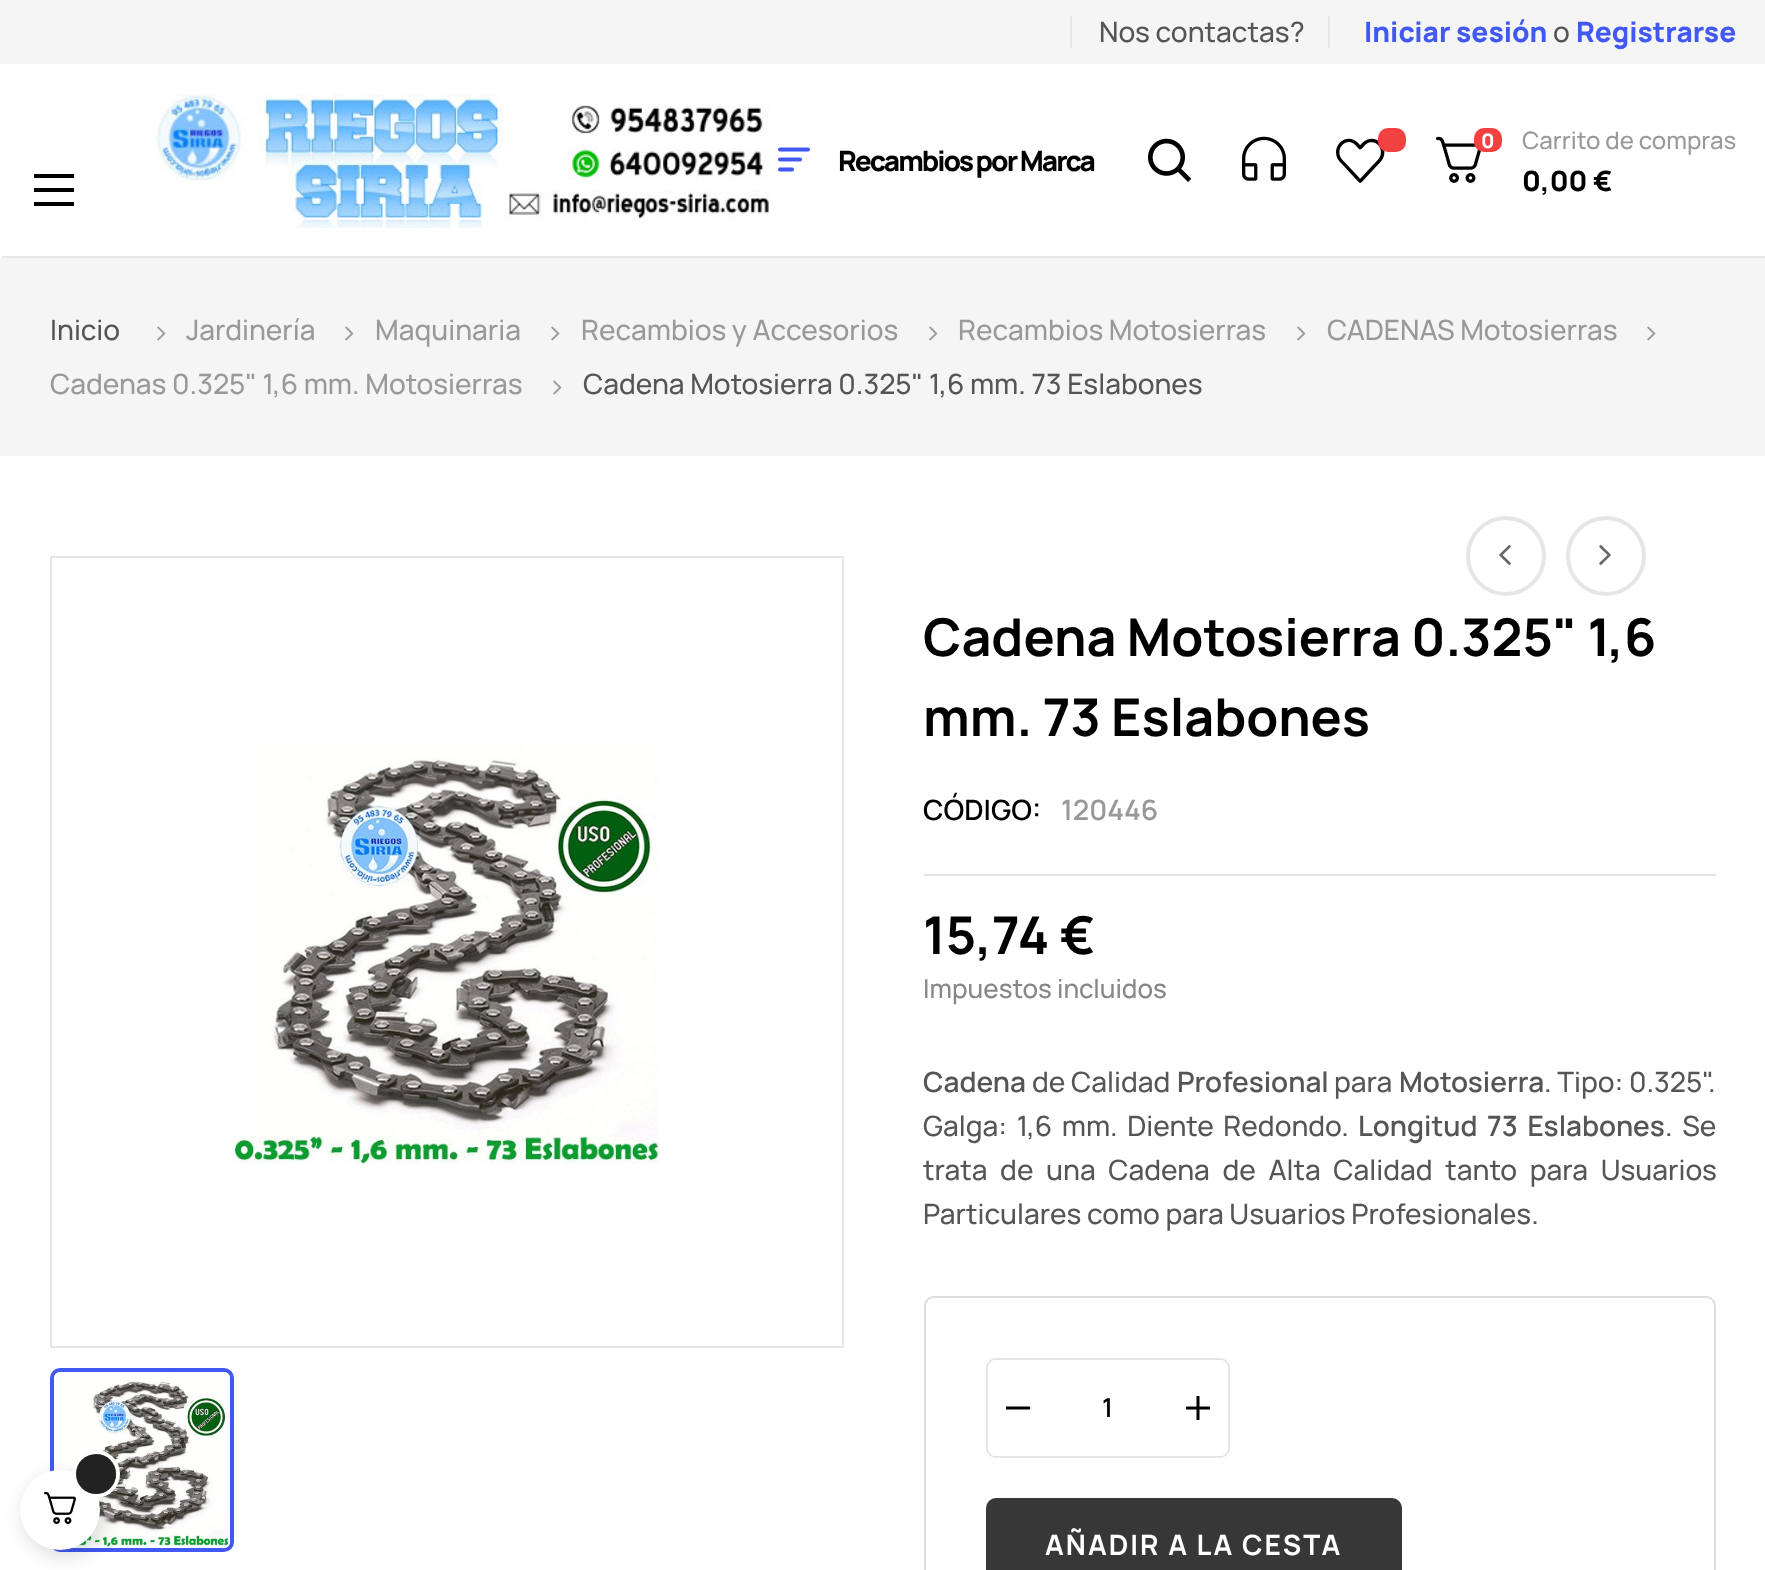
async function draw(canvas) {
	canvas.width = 1765;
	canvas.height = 1570;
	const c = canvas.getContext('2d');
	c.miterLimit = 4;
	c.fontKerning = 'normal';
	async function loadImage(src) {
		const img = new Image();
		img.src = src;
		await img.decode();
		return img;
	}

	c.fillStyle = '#fff';
	c.fillRect(0, 0, 1765, 1570);
	c.fillStyle = '#f5f5f5';
	c.fillRect(0, 0, 1765, 64);
	c.fillStyle = '#e6e6e6';
	c.fillRect(1070, 16, 2, 32);
	c.font = '500 28px Manrope';
	c.fillStyle = '#555';
	c.fillText('Nos contactas?', 1099, 42);
	c.fillStyle = '#e6e6e6';
	c.fillRect(1328, 16, 2, 32);
	c.font = '800 28px Manrope';
	c.fillStyle = '#4158f2';
	c.fillText('Iniciar sesión', 1364, 42);
	c.font = '500 28px Manrope';
	c.fillStyle = '#555';
	c.fillText('o', 1553, 42);
	c.font = '800 28px Manrope';
	c.fillStyle = '#4158f2';
	c.fillText('Registrarse', 1576, 42);
	for (const [x, y, w, h, color] of [
		[34, 174, 40, 4, '#000'],
		[34, 202, 40, 4, '#000'],
		[34, 188, 40, 4, '#000'],
	]) {
		c.fillStyle = color;
		c.fillRect(x, y, w, h);
	}
	c.drawImage(await loadImage('img1.png'), 154, 94, 616, 134);
	c.drawImage(await loadImage('img2.png'), 778, 147, 32, 25);
	c.letterSpacing = '-2px';
	c.fillText('Recambios por Marca', 838, 171);
	c.drawImage(await loadImage('img3.png'), 1148, 138, 44, 44);
	c.drawImage(await loadImage('img4.png'), 1242, 136, 44, 45);
	c.drawImage(await loadImage('img5.png'), 1336, 138, 49, 45);
	c.fillStyle = '#f14141';
	c.beginPath();
	c.roundRect(1378, 128, 28, 24, 10);
	c.fill();
	c.drawImage(await loadImage('img6.png'), 1436, 136, 45, 47);
	c.beginPath();
	c.roundRect(1474, 128, 28, 24, 10);
	c.fill();
	c.letterSpacing = '0px';
	c.font = '800 20px Manrope';
	c.fillStyle = '#fff';
	c.fillText('0', 1481, 148);
	c.font = '500 24px Manrope';
	c.fillStyle = '#999';
	c.fillText('Carrito de compras', 1522, 149);
	c.font = '800 28px Manrope';
	c.fillStyle = '#000';
	c.fillText('0,00 €', 1522, 191);
	c.fillStyle = '#e6e6e6';
	c.fillRect(2, 256, 1763, 2);
	c.fillStyle = '#f5f5f5';
	c.fillRect(0, 258, 1765, 198);
	c.font = '500 28px Manrope';
	c.fillStyle = '#555';
	c.fillText('Inicio', 50, 340);
	c.drawImage(await loadImage('img7.png'), 157, 326, 9, 15);
	c.fillStyle = '#999';
	c.fillText('Jardinería', 186, 340);
	c.drawImage(await loadImage('img7.png'), 345, 326, 9, 15);
	c.fillText('Maquinaria', 375, 340);
	c.drawImage(await loadImage('img7.png'), 551, 326, 9, 15);
	c.fillText('Recambios y Accesorios', 581, 340);
	c.drawImage(await loadImage('img7.png'), 929, 326, 9, 15);
	c.fillText('Recambios Motosierras', 958, 340);
	c.drawImage(await loadImage('img7.png'), 1297, 326, 9, 15);
	c.fillText('CADENAS Motosierras', 1327, 340);
	c.drawImage(await loadImage('img7.png'), 1647, 326, 9, 15);
	c.fillText('Cadenas 0.325" 1,6 mm. Motosierras', 50, 394);
	c.drawImage(await loadImage('img7.png'), 553, 380, 9, 15);
	c.fillStyle = '#555';
	c.fillText('Cadena Motosierra 0.325" 1,6 mm. 73 Eslabones', 583, 394);
	c.beginPath();
	c.arc(1506, 556, 38, 0, 2 * Math.PI);
	c.strokeStyle = '#e6e6e6';
	c.lineWidth = 4;
	c.stroke();
	c.drawImage(await loadImage('img8.png'), 1499, 545, 12, 20);
	c.beginPath();
	c.arc(1606, 556, 38, 0, 2 * Math.PI);
	c.stroke();
	c.drawImage(await loadImage('img9.png'), 1599, 545, 12, 20);
	c.lineWidth = 2;
	c.strokeRect(51, 557, 792, 790);
	c.drawImage(await loadImage('img10.png'), 231, 746, 429, 419);
	c.beginPath();
	c.roundRect(52, 1370, 180, 180, 8);
	c.strokeStyle = '#4158f2';
	c.lineWidth = 4;
	c.stroke();
	c.drawImage(await loadImage('img11.png'), 54, 1372, 176, 176);
	c.font = 'bold 52px Manrope';
	c.fillStyle = '#000';
	c.fillText('Cadena Motosierra 0.325" 1,6', 923, 656);
	c.fillText('mm. 73 Eslabones', 923, 736);
	c.fillStyle = '#e5e5e5';
	c.fillRect(924, 874, 792, 2);
	c.font = '600 28px Manrope';
	c.fillStyle = '#000';
	c.fillText('CÓDIGO:', 923, 820);
	c.fillStyle = '#999';
	c.fillText('120446', 1061, 820);
	c.font = 'bold 52px Manrope';
	c.fillStyle = '#000';
	c.fillText('15,74 €', 923, 954);
	c.font = '500 26px Manrope';
	c.fillStyle = '#878787';
	c.fillText('Impuestos incluidos', 923, 998);
	c.font = '600 28px Manrope';
	c.fillStyle = '#555';
	c.fillText('Cadena', 923, 1092);
	c.font = '500 28px Manrope';
	c.fillText('de Calidad', 1032, 1092);
	c.font = '600 28px Manrope';
	c.fillText('Profesional', 1177, 1092);
	c.font = '500 28px Manrope';
	c.fillText('para', 1334, 1092);
	c.font = '600 28px Manrope';
	c.fillText('Motosierra', 1399, 1092);
	c.font = '500 28px Manrope';
	c.fillText('. Tipo: 0.325".', 1544, 1092);
	c.wordSpacing = '4px';
	c.fillText('Galga: 1,6 mm. Diente Redondo.', 923, 1136);
	c.font = '600 28px Manrope';
	c.fillText('Longitud 73 Eslabones', 1358, 1136);
	c.font = '500 28px Manrope';
	c.fillText('. Se', 1665, 1136);
	c.wordSpacing = '7px';
	c.fillText('trata de una Cadena de Alta Calidad tanto para Usuarios', 923, 1180);
	c.wordSpacing = '0px';
	c.fillText('Particulares como para Usuarios Profesionales.', 923, 1224);
	c.beginPath();
	c.roundRect(925, 1297, 790, 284, 9);
	c.strokeStyle = '#ddd';
	c.lineWidth = 2;
	c.stroke();
	c.beginPath();
	c.roundRect(987, 1359, 242, 98, 9);
	c.strokeStyle = '#e5e5e5';
	c.stroke();
	c.fillStyle = '#fff';
	c.beginPath();
	c.roundRect(988, 1360, 60, 96, [8, 0, 0, 8]);
	c.fill();
	c.fillStyle = '#000';
	c.beginPath();
	c.moveTo(1029.5, 1406.5);
	c.bezierCurveTo(1030.5, 1406.5, 1030.5, 1409.5, 1029.5, 1409.5);
	c.lineTo(1006, 1409.5);
	c.lineTo(1006, 1407);
	c.lineTo(1006, 1406.5);
	c.closePath();
	c.fill();
	c.fillStyle = '#fff';
	c.beginPath();
	c.roundRect(1168, 1360, 60, 96, [0, 8, 8, 0]);
	c.fill();
	c.drawImage(await loadImage('img12.png'), 1186, 1396, 24, 24);
	c.font = '600 26px Manrope';
	c.fillStyle = '#000';
	c.fillText('1', 1102, 1417);
	c.fillStyle = '#373737';
	c.beginPath();
	c.roundRect(986, 1498, 416, 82, 10);
	c.fill();
	c.letterSpacing = '2px';
	c.font = 'bold 28px Manrope';
	c.fillStyle = '#fff';
	c.fillText('AÑADIR A LA CESTA', 1045, 1555);
	c.fillStyle = '#00000026';
	c.filter = 'blur(10px)';
	c.beginPath();
	c.roundRect(24, 1476, 80, 80, 40);
	c.fill();
	c.filter = 'none';
	c.fillStyle = '#fff';
	c.beginPath();
	c.arc(60, 1510, 40, 0, 2 * Math.PI);
	c.fill();
	c.drawImage(await loadImage('img13.png'), 44, 1492, 32, 32);
	c.beginPath();
	c.arc(96, 1474, 22, 0, 2 * Math.PI);
	c.strokeStyle = '#fff';
	c.lineWidth = 4;
	c.stroke();
	c.fillStyle = '#222';
	c.beginPath();
	c.arc(96, 1474, 20, 0, 2 * Math.PI);
	c.fill();
}

draw(document.querySelector('canvas'));
